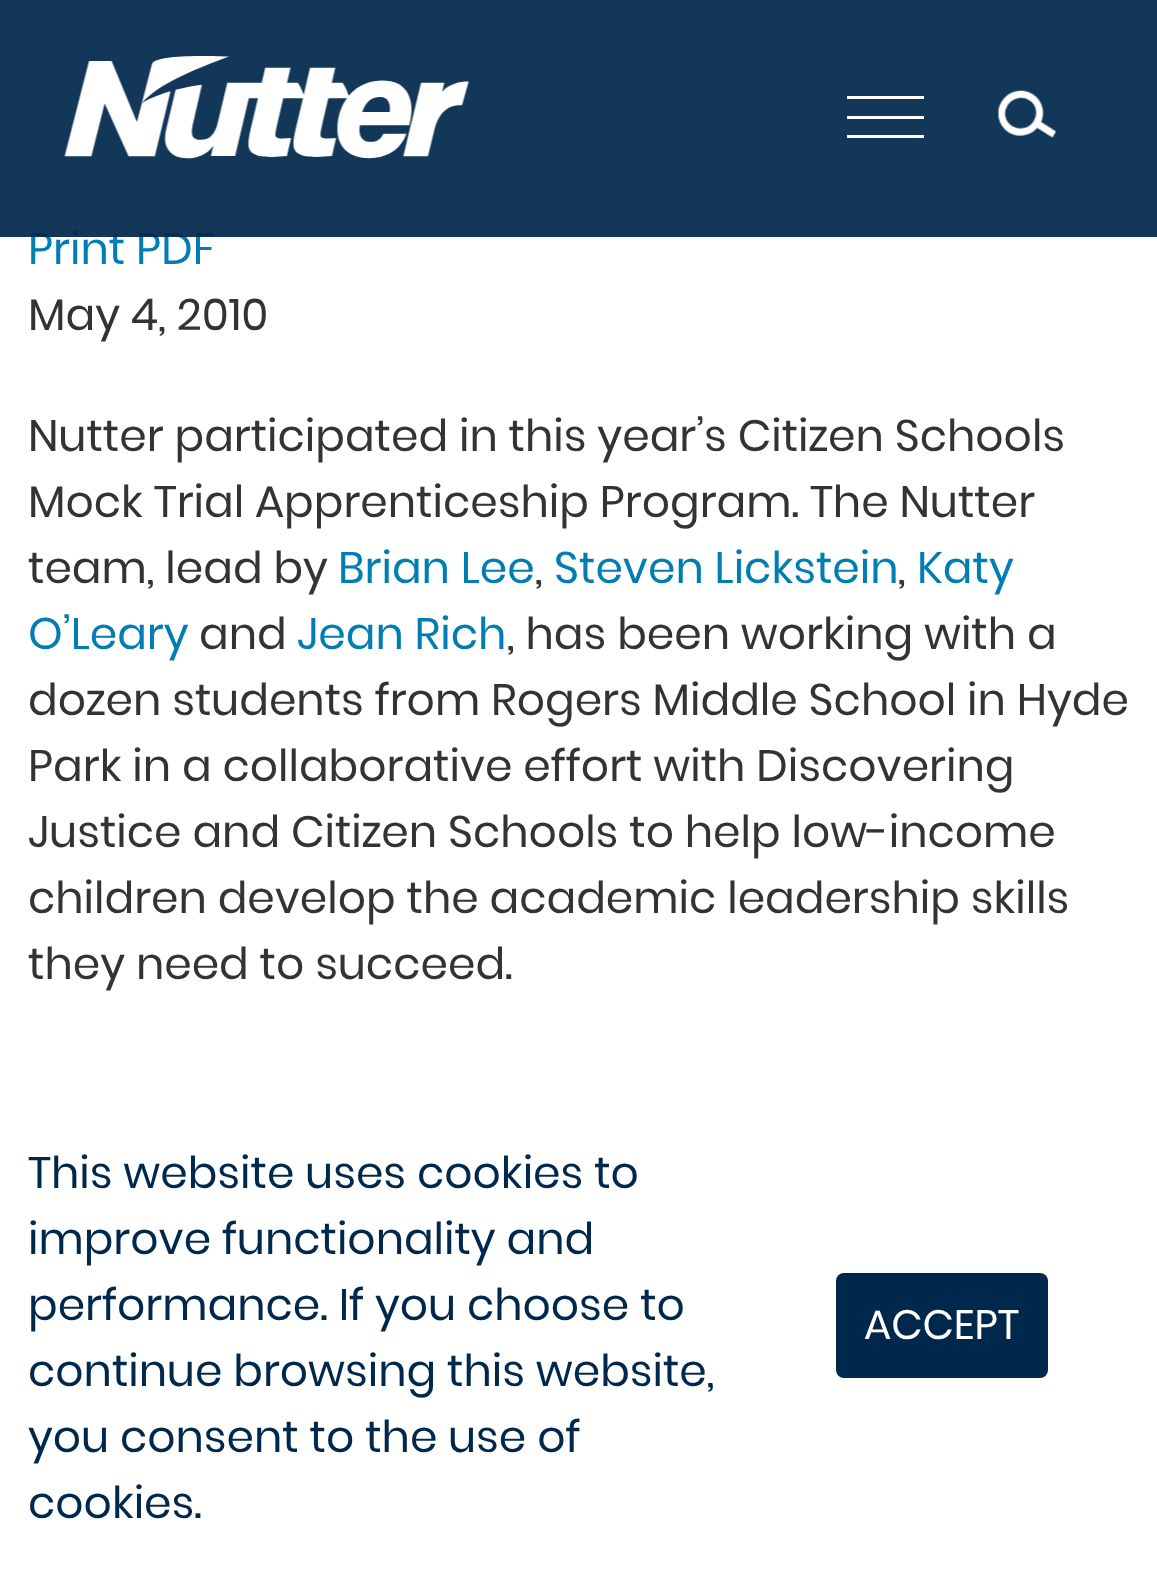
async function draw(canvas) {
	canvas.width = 1157;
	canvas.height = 1590;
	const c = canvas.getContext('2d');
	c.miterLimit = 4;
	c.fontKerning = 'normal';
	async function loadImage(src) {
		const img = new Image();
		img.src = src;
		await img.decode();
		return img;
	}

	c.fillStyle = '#fff';
	c.fillRect(0, 0, 1157, 1590);
	c.font = '44px Poppins';
	c.fillStyle = '#007db3';
	c.fillText('Print PDF', 28, 264);
	c.fillStyle = '#00284ced';
	c.fillRect(0, 0, 1157, 237);
	c.drawImage(await loadImage('img1.png'), 64, 56, 406, 103);
	for (const [x, y, w, h, color] of [
		[847, 135, 77, 3, '#fff'],
		[847, 116, 77, 3, '#fff'],
		[847, 96, 77, 3, '#fff'],
	]) {
		c.fillStyle = color;
		c.fillRect(x, y, w, h);
	}
	c.drawImage(await loadImage('img2.png'), 998, 90, 59, 48);
	c.fillStyle = '#333';
	for (const [text, x, y] of [
		['May 4, 2010', 28, 330],
		['Nutter participated in this year’s Citizen Schools', 28, 451],
		['Mock Trial Apprenticeship Program. The Nutter', 28, 517],
		['team, lead by', 28, 583],
	]) {
		c.fillText(text, x, y);
	}
	c.fillStyle = '#007db3';
	c.fillText('Brian Lee', 338, 583);
	c.fillStyle = '#333';
	c.fillText(',', 535, 583);
	c.fillStyle = '#007db3';
	c.fillText('Steven Lickstein', 554, 583);
	c.fillStyle = '#333';
	c.fillText(',', 898, 583);
	c.fillStyle = '#007db3';
	c.fillText('Katy', 917, 583);
	c.fillText('O’Leary', 28, 649);
	c.fillStyle = '#333';
	c.fillText('and', 199, 649);
	c.fillStyle = '#007db3';
	c.fillText('Jean Rich', 297, 649);
	c.fillStyle = '#333';
	for (const [text, x, y] of [
		[', has been working with a', 507, 649],
		['dozen students from Rogers Middle School in Hyde', 28, 715],
		['Park in a collaborative effort with Discovering', 28, 781],
		['Justice and Citizen Schools to help low-income', 28, 847],
		['children develop the academic leadership skills', 28, 913],
		['they need to succeed.', 28, 979],
	]) {
		c.fillText(text, x, y);
	}
	c.fillStyle = '#00284c';
	for (const [text, x, y] of [
		['This website uses cookies to', 28, 1188],
		['improve functionality and', 28, 1254],
		['performance. If you choose to', 28, 1320],
		['continue browsing this website,', 28, 1386],
		['you consent to the use of', 28, 1452],
		['cookies.', 28, 1518],
	]) {
		c.fillText(text, x, y);
	}
	c.beginPath();
	c.roundRect(836, 1273, 212, 105, 8);
	c.fill();
	c.font = '41px Poppins';
	c.fillStyle = '#fff';
	c.fillText('ACCEPT', 864, 1339);
}

draw(document.querySelector('canvas'));
